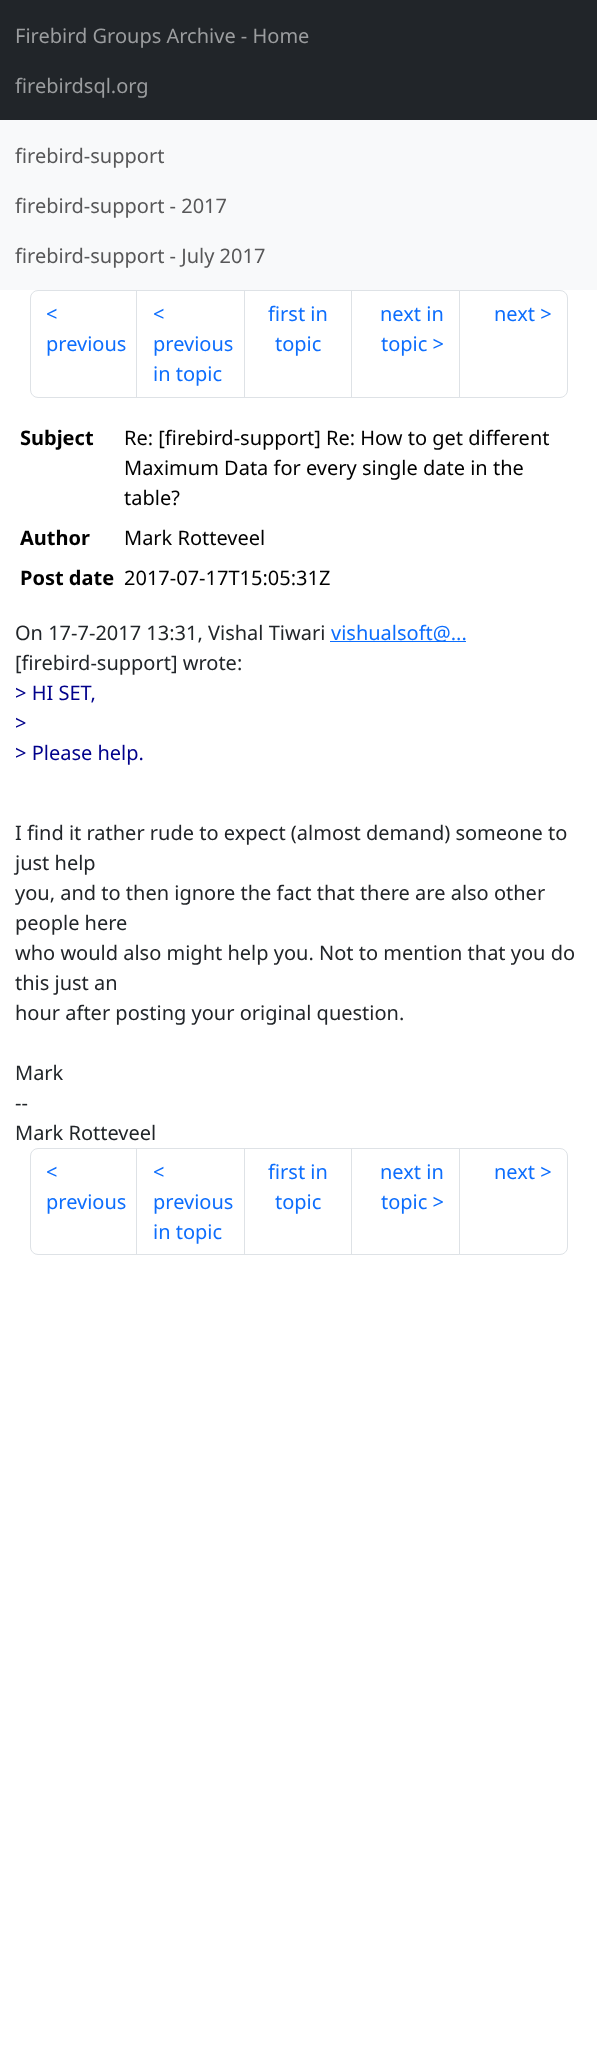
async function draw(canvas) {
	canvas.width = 597;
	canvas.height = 2045;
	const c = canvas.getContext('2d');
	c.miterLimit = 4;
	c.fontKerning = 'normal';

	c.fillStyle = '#fff';
	c.fillRect(0, 0, 597, 2045);
	c.fillStyle = '#212529';
	c.fillRect(0, 0, 597, 120);
	c.font = '20px Noto Sans';
	c.fillStyle = '#9b9d9f';
	c.fillText('Firebird Groups Archive - Home', 15, 43);
	c.fillText('firebirdsql.org', 15, 93);
	c.fillStyle = '#f8f9fa';
	c.fillRect(0, 120, 597, 170);
	c.fillStyle = '#575758';
	for (const [text, x, y] of [
		['firebird-support', 15, 163],
		['firebird-support - 2017', 15, 213],
		['firebird-support - July 2017', 15, 263],
	]) {
		c.fillText(text, x, y);
	}
	c.beginPath();
	c.roundRect(30.5, 290.5, 107, 107, [7.5, 0, 0, 7.5]);
	c.strokeStyle = '#dee2e6';
	c.stroke();
	c.fillStyle = '#0d6efd';
	c.fillText('<', 46, 321);
	c.fillText('previous', 46, 351);
	c.fillStyle = '#fff';
	c.fillRect(137, 291, 1, 106);
	c.strokeRect(136.5, 290.5, 108, 107);
	c.fillStyle = '#0d6efd';
	for (const [text, x, y] of [
		['<', 153, 321],
		['previous', 153, 351],
		['in topic', 153, 381],
	]) {
		c.fillText(text, x, y);
	}
	c.strokeRect(244.5, 290.5, 108, 107);
	c.fillText('first in', 268, 321);
	c.fillText('topic', 275, 351);
	c.fillStyle = '#fff';
	c.fillRect(352, 291, 1, 106);
	c.strokeRect(351.5, 290.5, 108, 107);
	c.fillStyle = '#0d6efd';
	c.fillText('next in', 380, 321);
	c.fillText('topic >', 381, 351);
	c.fillStyle = '#fff';
	c.beginPath();
	c.roundRect(459.5, 290.5, 108, 107, [0, 7.5, 7.5, 0]);
	c.fill();
	c.stroke();
	c.fillStyle = '#0d6efd';
	c.fillText('next >', 494, 321);
	c.font = 'bold 20px Noto Sans';
	c.fillStyle = '#000';
	c.fillText('Subject', 20, 445);
	c.font = '20px Noto Sans';
	for (const [text, x, y] of [
		['Re: [firebird-support] Re: How to get different', 124, 445],
		['Maximum Data for every single date in the', 124, 475],
		['table?', 124, 505],
	]) {
		c.fillText(text, x, y);
	}
	c.font = 'bold 20px Noto Sans';
	c.fillText('Author', 20, 545);
	c.font = '20px Noto Sans';
	c.fillText('Mark Rotteveel', 124, 545);
	c.font = 'bold 20px Noto Sans';
	c.fillText('Post date', 20, 585);
	c.font = '20px Noto Sans';
	c.fillText('2017-07-17T15:05:31Z', 124, 585);
	c.fillStyle = '#212529';
	c.fillText('On 17-7-2017 13:31, Vishal Tiwari', 15, 640);
	c.fillStyle = '#0d6efd';
	c.fillRect(330, 641, 136, 1);
	c.fillText('vishualsoft@...', 331, 640);
	c.fillStyle = '#212529';
	c.fillText('[firebird-support] wrote:', 15, 670);
	c.fillStyle = '#00008b';
	for (const [text, x, y] of [
		['> HI SET,', 15, 700],
		['>', 15, 730],
		['> Please help.', 15, 760],
	]) {
		c.fillText(text, x, y);
	}
	c.fillStyle = '#212529';
	for (const [text, x, y] of [
		['I find it rather rude to expect (almost demand) someone to', 15, 840],
		['just help', 15, 870],
		['you, and to then ignore the fact that there are also other', 15, 900],
		['people here', 15, 930],
		['who would also might help you. Not to mention that you do', 15, 960],
		['this just an', 15, 990],
		['hour after posting your original question.', 15, 1020],
		['Mark', 15, 1080],
		['--', 15, 1110],
		['Mark Rotteveel', 15, 1140],
	]) {
		c.fillText(text, x, y);
	}
	c.beginPath();
	c.roundRect(30.5, 1148.5, 107, 106, [7.5, 0, 0, 7.5]);
	c.stroke();
	c.fillStyle = '#0d6efd';
	c.fillText('<', 46, 1179);
	c.fillText('previous', 46, 1209);
	c.fillStyle = '#fff';
	c.fillRect(137, 1149, 1, 105);
	c.strokeRect(136.5, 1148.5, 108, 106);
	c.fillStyle = '#0d6efd';
	for (const [text, x, y] of [
		['<', 153, 1179],
		['previous', 153, 1209],
		['in topic', 153, 1239],
	]) {
		c.fillText(text, x, y);
	}
	c.strokeRect(244.5, 1148.5, 108, 106);
	c.fillText('first in', 268, 1179);
	c.fillText('topic', 275, 1209);
	c.fillStyle = '#fff';
	c.fillRect(352, 1149, 1, 105);
	c.strokeRect(351.5, 1148.5, 108, 106);
	c.fillStyle = '#0d6efd';
	c.fillText('next in', 380, 1179);
	c.fillText('topic >', 381, 1209);
	c.fillStyle = '#fff';
	c.beginPath();
	c.roundRect(459.5, 1148.5, 108, 106, [0, 7.5, 7.5, 0]);
	c.fill();
	c.stroke();
	c.fillStyle = '#0d6efd';
	c.fillText('next >', 494, 1179);
}

draw(document.querySelector('canvas'));
